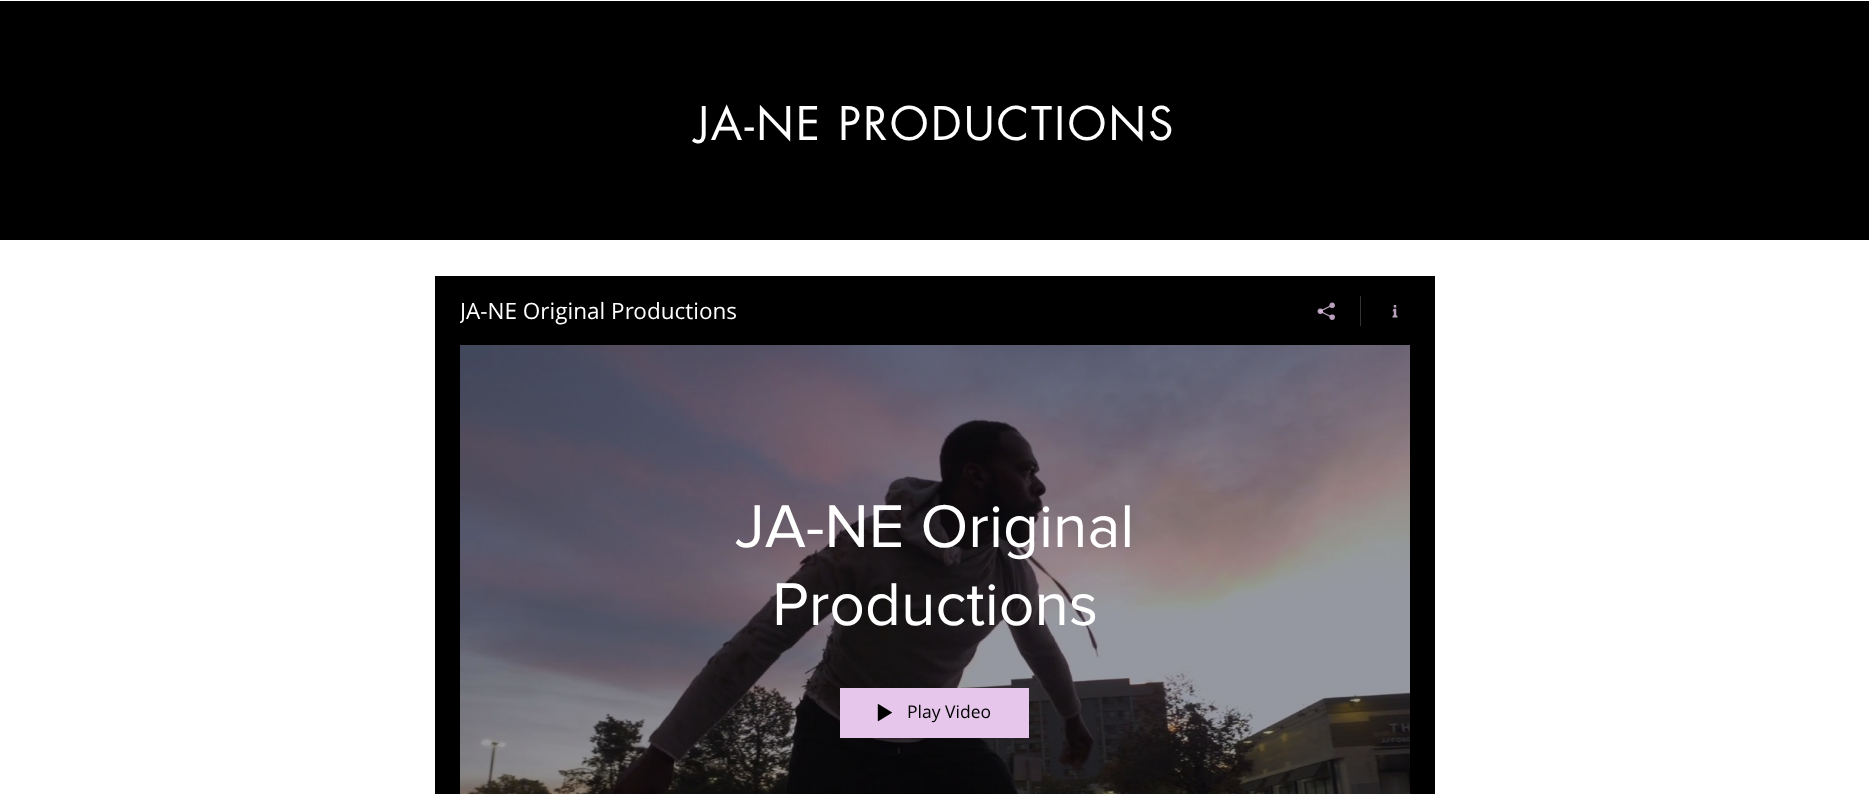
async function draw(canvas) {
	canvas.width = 1869;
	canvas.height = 794;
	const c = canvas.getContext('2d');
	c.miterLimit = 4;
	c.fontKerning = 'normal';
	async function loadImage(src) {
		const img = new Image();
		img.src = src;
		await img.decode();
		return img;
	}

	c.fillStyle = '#fff';
	c.fillRect(0, 0, 1869, 794);
	c.fillStyle = '#000';
	c.fillRect(0, 1, 1869, 239);
	c.letterSpacing = '2.25px';
	c.font = '45px futura';
	c.fillStyle = '#fff';
	c.fillText('JA-NE PRODUCTIONS', 695, 140);
	c.fillStyle = '#000';
	c.fillRect(435, 276, 1000, 518);
	c.save();
	c.beginPath();
	c.rect(460, 290, 808, 41);
	c.clip();
	c.letterSpacing = '0px';
	c.font = '22.5px Open Sans';
	c.fillStyle = '#fff';
	c.fillText('JA-NE Original Productions', 460, 319);
	c.restore();
	c.fillStyle = '#333';
	c.fillRect(1360, 296, 1, 30);
	c.drawImage(await loadImage('img1.png'), 1317, 302, 18, 18);
	c.drawImage(await loadImage('img2.png'), 1392, 305, 6, 13);
	c.drawImage(await loadImage('img3.png'), 460, 345, 950, 449);
	c.drawImage(await loadImage('img4.png'), 466, 419, 944, 375);
	c.letterSpacing = '0px';
	c.font = '62.5px "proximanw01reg"';
	c.fillStyle = '#fff';
	c.fillText('JA-NE Original', 735, 547);
	c.fillText('Productions', 772, 625);
	c.fillStyle = '#e6c7eb';
	c.fillRect(840, 688, 189, 50);
	c.drawImage(await loadImage('img5.png'), 877, 704, 15, 18);
	c.font = '17.5px Open Sans';
	c.fillStyle = '#000';
	c.fillText('Play Video', 907, 718);
}

draw(document.querySelector('canvas'));
